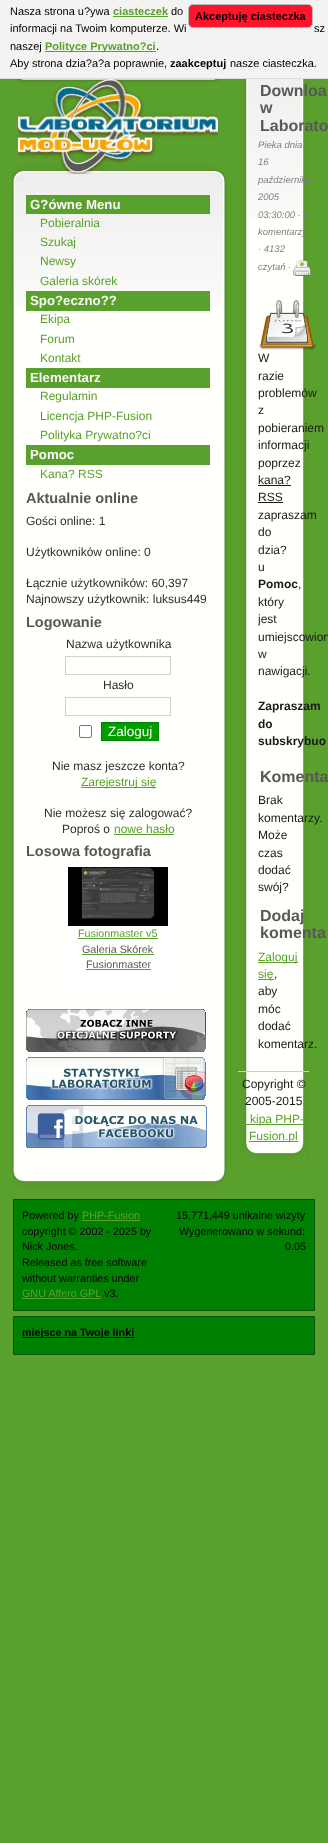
async function draw(canvas) {
	canvas.width = 328;
	canvas.height = 1843;
	const c = canvas.getContext('2d');
	c.miterLimit = 4;
	c.fontKerning = 'normal';
	async function loadImage(src) {
		const img = new Image();
		img.src = src;
		await img.decode();
		return img;
	}

	c.fillStyle = '#5aa02c';
	c.fillRect(0, 0, 328, 1843);
	c.fillStyle = '#fffffc';
	c.fillRect(248, 219, 54, 934);
	c.drawImage(await loadImage('img1.png'), 248, 79, 54, 140);
	c.drawImage(await loadImage('img2.png'), 256, 1153, 37, 8);
	c.drawImage(await loadImage('img3.png'), 302, 79, 9, 1082);
	c.drawImage(await loadImage('img4.png'), 236, 79, 12, 1082);
	c.drawImage(await loadImage('img5.png'), 293, 1143, 13, 18);
	c.drawImage(await loadImage('img6.png'), 243, 1143, 13, 18);
	c.fillStyle = '#f3f3f2';
	c.fillRect(0, 0, 328, 78);
	c.fillStyle = '#ddd';
	c.fillRect(0, 78, 328, 1);
	c.font = '11px Liberation Sans';
	c.fillStyle = '#000';
	c.fillText('Nasza strona u?ywa', 10, 15);
	c.font = 'bold 11px Liberation Sans';
	c.fillStyle = '#5aa02c';
	c.fillText('ciasteczek', 113, 15);
	c.fillRect(113, 16, 55, 1);
	c.font = '11px Liberation Sans';
	c.fillStyle = '#000';
	c.fillText('do', 171, 15);
	c.fillStyle = '#ff142c';
	c.beginPath();
	c.roundRect(188.5, 4.5, 124, 23, 4.5);
	c.fill();
	c.strokeStyle = '#b7b5b5';
	c.stroke();
	c.font = 'bold 11px Liberation Sans';
	c.fillStyle = '#000';
	c.fillText('Akceptuję ciasteczka', 195, 20);
	c.font = '11px Liberation Sans';
	for (const [text, x, y] of [
		['informacji na Twoim komputerze. Wi', 10, 32],
		['sz', 314, 32],
		['naszej', 10, 50],
	]) {
		c.fillText(text, x, y);
	}
	c.fillStyle = '#5aa02c';
	c.fillRect(45, 51, 111, 1);
	c.font = 'bold 11px Liberation Sans';
	c.fillText('Polityce Prywatno?ci', 45, 50);
	c.font = '11px Liberation Sans';
	c.fillStyle = '#000';
	c.fillText('.', 156, 50);
	c.fillText('Aby strona dzia?a?a poprawnie,', 10, 67);
	c.font = 'bold 11px Liberation Sans';
	c.fillText('zaakceptuj', 170, 67);
	c.font = '11px Liberation Sans';
	c.fillText('nasze ciasteczka.', 230, 67);
	c.font = 'bold 16px Liberation Sans';
	c.fillStyle = '#585858';
	for (const [text, x, y] of [
		['Downloa', 260, 96],
		['w', 260, 113],
		['Laborato', 260, 131],
	]) {
		c.fillText(text, x, y);
	}
	c.font = 'italic 9.5px Liberation Sans';
	c.fillStyle = '#808080';
	for (const [text, x, y] of [
		['Pieka dnia', 258, 148],
		['16', 258, 165],
		['października', 258, 183],
		['2005', 258, 200],
		['03:30:00 · 0', 258, 218],
		['komentarzy', 258, 235],
		['· 4132', 258, 252],
		['czytań ·', 258, 270],
	]) {
		c.fillText(text, x, y);
	}
	c.drawImage(await loadImage('img7.png'), 293, 260, 18, 16);
	c.drawImage(await loadImage('img8.png'), 259, 300, 57, 50);
	c.font = '12px Liberation Sans';
	c.fillStyle = '#1a1a1a';
	for (const [text, x, y] of [
		['W', 258, 362],
		['razie', 258, 380],
		['problemów', 258, 397],
		['z', 258, 414],
		['pobieraniem', 258, 432],
		['informacji', 258, 449],
		['poprzez', 258, 467],
		['kana?', 258, 484],
	]) {
		c.fillText(text, x, y);
	}
	c.fillRect(258, 485, 33, 1);
	c.fillText('RSS', 258, 501);
	c.fillRect(258, 502, 25, 1);
	for (const [text, x, y] of [
		['zapraszam', 258, 519],
		['do', 258, 536],
		['dzia?', 258, 554],
		['u', 258, 571],
	]) {
		c.fillText(text, x, y);
	}
	c.font = 'bold 12px Liberation Sans';
	c.fillText('Pomoc', 258, 588);
	c.font = '12px Liberation Sans';
	for (const [text, x, y] of [
		[',', 298, 588],
		['który', 258, 606],
		['jest', 258, 623],
		['umiejscowion', 258, 641],
		['w', 258, 658],
		['nawigacji.', 258, 675],
	]) {
		c.fillText(text, x, y);
	}
	c.font = 'bold 12px Liberation Sans';
	for (const [text, x, y] of [
		['Zapraszam', 258, 710],
		['do', 258, 728],
		['subskrybuo', 258, 745],
	]) {
		c.fillText(text, x, y);
	}
	c.font = 'bold 16px Liberation Sans';
	c.fillStyle = '#585858';
	c.fillText('Komenta', 260, 782);
	c.font = '12px Liberation Sans';
	c.fillStyle = '#1a1a1a';
	for (const [text, x, y] of [
		['Brak', 258, 804],
		['komentarzy.', 258, 822],
		['Może', 258, 839],
		['czas', 258, 857],
		['dodać', 258, 874],
		['swój?', 258, 891],
	]) {
		c.fillText(text, x, y);
	}
	c.font = 'bold 16px Liberation Sans';
	c.fillStyle = '#585858';
	c.fillText('Dodaj', 260, 921);
	c.fillText('komenta', 260, 938);
	c.fillStyle = '#5aa02c';
	c.fillRect(258, 962, 40, 1);
	c.font = '12px Liberation Sans';
	c.fillText('Zaloguj', 258, 961);
	c.fillRect(258, 979, 16, 1);
	c.fillText('się', 258, 978);
	c.fillStyle = '#1a1a1a';
	for (const [text, x, y] of [
		[',', 274, 978],
		['aby', 258, 995],
		['móc', 258, 1013],
		['dodać', 258, 1030],
		['komentarz.', 258, 1048],
	]) {
		c.fillText(text, x, y);
	}
	c.fillStyle = '#d5cbc8';
	c.fillRect(238, 1071, 71, 1);
	c.fillStyle = '#1a1a1a';
	c.fillText('Copyright ©', 242, 1088);
	c.fillText('2005-2015', 245, 1105);
	c.fillStyle = '#5aa02c';
	c.fillRect(242, 1124, 63, 1);
	c.fillText('kipa PHP-', 250, 1123);
	c.fillRect(249, 1141, 49, 1);
	c.fillText('Fusion.pl', 249, 1140);
	c.drawImage(await loadImage('img9.png'), 24, 79, 190, 5);
	c.drawImage(await loadImage('img10.png'), 8, 79, 3, 5);
	c.drawImage(await loadImage('img11.png'), 226, 79, 2, 5);
	c.drawImage(await loadImage('img12.png'), 11, 79, 13, 5);
	c.drawImage(await loadImage('img13.png'), 214, 79, 12, 5);
	c.drawImage(await loadImage('img15.png'), 15, 173, 208, 132);
	c.drawImage(await loadImage('img17.png'), 24, 164, 190, 9);
	c.drawImage(await loadImage('img18.png'), 223, 164, 5, 1025);
	c.drawImage(await loadImage('img21.png'), 214, 164, 13, 17);
	c.drawImage(await loadImage('img19.png'), 8, 164, 7, 1025);
	c.drawImage(await loadImage('img23.png'), 11, 164, 13, 18);
	c.drawImage(await loadImage('img14.png'), 18, 79, 200, 95);
	c.fillStyle = '#fffffc';
	c.fillRect(15, 305, 208, 876);
	c.drawImage(await loadImage('img16.png'), 24, 1181, 190, 8);
	c.drawImage(await loadImage('img20.png'), 214, 1171, 13, 18);
	c.drawImage(await loadImage('img22.png'), 11, 1171, 13, 18);
	c.fillStyle = '#5aa02c';
	c.fillRect(26, 195, 184, 19);
	c.font = 'bold 13.25px Liberation Sans';
	c.fillStyle = '#f9f9f9';
	c.fillText('G?ówne Menu', 30, 209);
	c.font = '12px Liberation Sans';
	c.fillStyle = '#5aa02c';
	for (const [text, x, y] of [
		['Pobieralnia', 40, 227],
		['Szukaj', 40, 246],
		['Newsy', 40, 265],
		['Galeria skórek', 40, 285],
	]) {
		c.fillText(text, x, y);
	}
	c.fillRect(26, 291, 184, 20);
	c.font = 'bold 13.25px Liberation Sans';
	c.fillStyle = '#f9f9f9';
	c.fillText('Spo?eczno??', 30, 305);
	c.font = '12px Liberation Sans';
	c.fillStyle = '#5aa02c';
	for (const [text, x, y] of [
		['Ekipa', 40, 323],
		['Forum', 40, 343],
		['Kontakt', 40, 362],
	]) {
		c.fillText(text, x, y);
	}
	c.fillRect(26, 368, 184, 20);
	c.font = 'bold 13.25px Liberation Sans';
	c.fillStyle = '#f9f9f9';
	c.fillText('Elementarz', 30, 382);
	c.font = '12px Liberation Sans';
	c.fillStyle = '#5aa02c';
	for (const [text, x, y] of [
		['Regulamin', 40, 400],
		['Licencja PHP-Fusion', 40, 420],
		['Polityka Prywatno?ci', 40, 439],
	]) {
		c.fillText(text, x, y);
	}
	c.fillRect(26, 445, 184, 20);
	c.font = 'bold 13.25px Liberation Sans';
	c.fillStyle = '#f9f9f9';
	c.fillText('Pomoc', 30, 459);
	c.font = '12px Liberation Sans';
	c.fillStyle = '#5aa02c';
	c.fillText('Kana? RSS', 40, 478);
	c.font = 'bold 14.5px Liberation Sans';
	c.fillStyle = '#585858';
	c.fillText('Aktualnie online', 26, 503);
	c.font = '12px Liberation Sans';
	c.fillStyle = '#2e2e2e';
	for (const [text, x, y] of [
		['Gości online: 1', 26, 525],
		['Użytkowników online: 0', 26, 556],
		['Łącznie użytkowników: 60,397', 26, 587],
		['Najnowszy użytkownik: luksus449', 26, 603],
	]) {
		c.fillText(text, x, y);
	}
	c.font = 'bold 14.5px Liberation Sans';
	c.fillStyle = '#585858';
	c.fillText('Logowanie', 26, 627);
	c.font = '12px Liberation Sans';
	c.fillStyle = '#2e2e2e';
	c.fillText('Nazwa użytkownika', 66, 648);
	c.strokeStyle = '#d0d0d0';
	c.strokeRect(65.5, 656.5, 105, 18);
	c.fillText('Hasło', 103, 689);
	c.strokeRect(65.5, 697.5, 105, 18);
	c.fillStyle = '#fff';
	c.beginPath();
	c.roundRect(79.5, 725.5, 12, 12, 1.5);
	c.fill();
	c.strokeStyle = '#767676';
	c.stroke();
	for (const [x, y, w, h, color] of [
		[102, 723, 56, 17, '#009c00'],
		[101, 722, 58, 1, '#008000'],
		[158, 722, 1, 19, '#080'],
		[101, 740, 58, 1, '#080'],
		[101, 722, 1, 19, '#008000'],
	]) {
		c.fillStyle = color;
		c.fillRect(x, y, w, h);
	}
	c.font = '13.5px Liberation Sans';
	c.fillStyle = '#fff';
	c.fillText('Zaloguj', 108, 736);
	c.font = '12px Liberation Sans';
	c.fillStyle = '#2e2e2e';
	c.fillText('Nie masz jeszcze konta?', 52, 770);
	c.fillStyle = '#5aa02c';
	c.fillRect(81, 787, 75, 1);
	c.fillText('Zarejestruj się', 81, 786);
	c.fillStyle = '#2e2e2e';
	c.fillText('Nie możesz się zalogować?', 44, 817);
	c.fillText('Poproś o', 62, 833);
	c.fillStyle = '#5aa02c';
	c.fillText('nowe hasło', 114, 833);
	c.fillRect(114, 834, 60, 1);
	c.font = 'bold 14.5px Liberation Sans';
	c.fillStyle = '#585858';
	c.fillText('Losowa fotografia', 26, 856);
	c.fillStyle = '#fff';
	c.fillRect(68, 926, 100, 71);
	c.drawImage(await loadImage('img24.png'), 68, 867, 100, 59);
	c.font = '10.75px Liberation Sans';
	c.fillStyle = '#5aa02c';
	c.fillText('Fusionmaster v5', 78, 937);
	c.fillRect(78, 938, 80, 1);
	c.fillStyle = '#585858';
	c.fillText('Galeria Skórek', 82, 953);
	c.fillStyle = '#5aa02c';
	c.fillRect(82, 954, 72, 1);
	c.fillStyle = '#585858';
	c.fillText('Fusionmaster', 86, 968);
	c.fillStyle = '#5aa02c';
	c.fillRect(86, 969, 65, 1);
	c.drawImage(await loadImage('img25.png'), 26, 1009, 180, 43);
	c.drawImage(await loadImage('img26.png'), 26, 1057, 180, 43);
	c.drawImage(await loadImage('img27.png'), 26, 1105, 181, 43);
	c.fillStyle = '#008000';
	c.beginPath();
	c.rect(13.5, 1199.5, 301, 111);
	c.fill();
	c.strokeStyle = '#050';
	c.stroke();
	c.fillStyle = '#000';
	c.fillText('Powered by', 22, 1219);
	c.fillStyle = '#5aa02c';
	c.fillText('PHP-Fusion', 82, 1219);
	c.fillRect(82, 1220, 58, 1);
	c.fillStyle = '#000';
	for (const [text, x, y] of [
		['copyright © 2002 - 2025 by', 22, 1235],
		['Nick Jones.', 22, 1250],
		['Released as free software', 22, 1266],
		['without warranties under', 22, 1282],
	]) {
		c.fillText(text, x, y);
	}
	c.fillStyle = '#5aa02c';
	c.fillText('GNU Affero GPL', 22, 1297);
	c.fillRect(22, 1298, 79, 1);
	c.fillStyle = '#000';
	for (const [text, x, y] of [
		['v3.', 104, 1297],
		['15,771,449 unikalne wizyty', 176, 1219],
		['Wygenerowano w sekund:', 179, 1235],
		['0.05', 285, 1250],
	]) {
		c.fillText(text, x, y);
	}
	c.fillStyle = '#008000';
	c.beginPath();
	c.rect(13.5, 1316.5, 301, 38);
	c.fill();
	c.stroke();
	c.fillStyle = '#000';
	c.fillRect(22, 1337, 113, 1);
	c.font = 'bold 10.75px Liberation Sans';
	c.fillText('miejsce na Twoje linki', 22, 1336);
}

draw(document.querySelector('canvas'));
